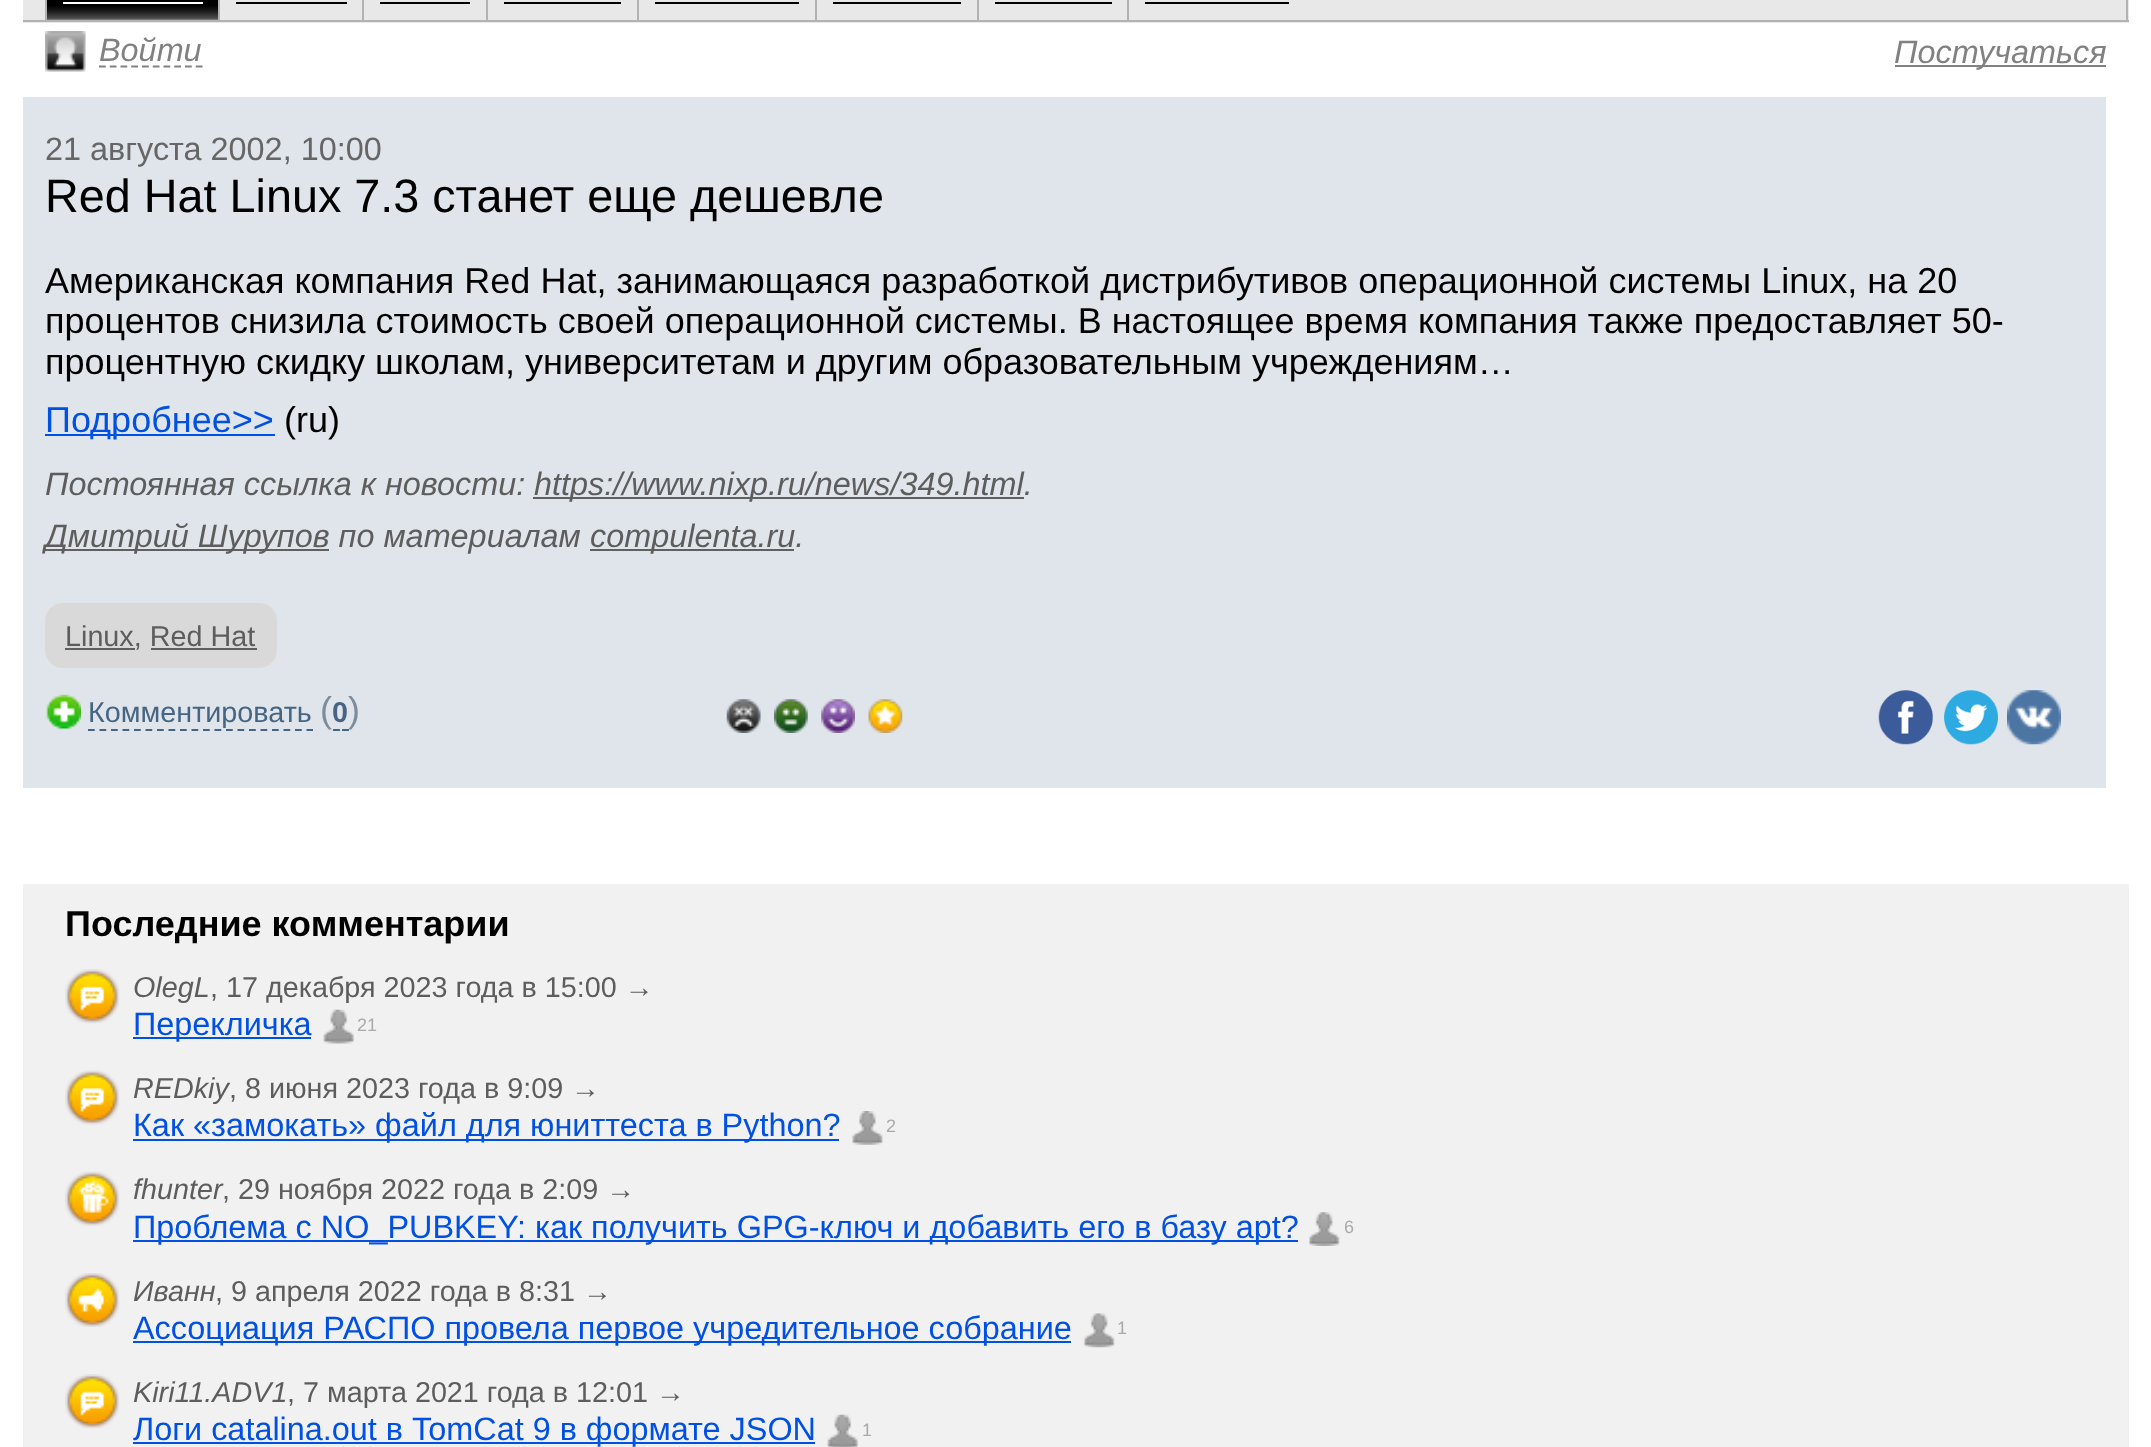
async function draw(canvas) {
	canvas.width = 2151;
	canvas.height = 1447;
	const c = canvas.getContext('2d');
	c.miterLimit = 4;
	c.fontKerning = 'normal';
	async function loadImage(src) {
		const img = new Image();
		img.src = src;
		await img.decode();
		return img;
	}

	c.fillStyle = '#fff';
	c.fillRect(0, 0, 2151, 1447);
	for (const [x, y, w, h, color] of [
		[23, 0, 2106, 23, '#e8e8e8'],
		[23, 20, 2106, 2, '#b2b2b2'],
		[2126, 0, 2, 20, '#b2b2b2'],
	]) {
		c.fillStyle = color;
		c.fillRect(x, y, w, h);
	}
	c.drawImage(await loadImage('img1.png'), 47, 0, 171, 20);
	for (const [x, y, w, h, color] of [
		[45, 0, 2, 20, '#b2b2b2'],
		[63, 2, 140, 2, '#fff'],
		[218, 0, 2, 20, '#b2b2b2'],
		[236, 2, 111, 2, '#000'],
		[362, 0, 2, 20, '#b2b2b2'],
		[380, 2, 90, 2, '#000'],
		[486, 0, 2, 20, '#b2b2b2'],
		[504, 2, 117, 2, '#000'],
		[637, 0, 2, 20, '#b2b2b2'],
		[655, 2, 144, 2, '#000'],
		[815, 0, 2, 20, '#b2b2b2'],
		[833, 2, 128, 2, '#000'],
		[977, 0, 2, 20, '#b2b2b2'],
		[995, 2, 117, 2, '#000'],
		[1127, 0, 2, 20, '#b2b2b2'],
		[1145, 2, 144, 2, '#000'],
	]) {
		c.fillStyle = color;
		c.fillRect(x, y, w, h);
	}
	c.drawImage(await loadImage('img2.png'), 45, 31, 41, 41);
	c.font = 'italic 32.4px Liberation Sans';
	c.fillStyle = '#818181';
	c.fillText('Войти', 99, 61);
	c.beginPath();
	c.moveTo(99, 66.5);
	c.lineTo(202.5, 66.5);
	c.strokeStyle = '#818181';
	c.lineWidth = 2.2;
	c.setLineDash([6.75, 4]);
	c.stroke();
	c.fillRect(1895, 65, 211, 2);
	c.fillText('Постучаться', 1894, 63);
	c.fillStyle = '#e0e5eb';
	c.fillRect(23, 97, 2083, 691);
	c.font = '32.4px Liberation Sans';
	c.fillStyle = '#666';
	c.fillText('21 августа 2002, 10:00', 45, 160);
	c.font = '46.75px Liberation Sans';
	c.fillStyle = '#000';
	c.fillText('Red Hat Linux 7.3 станет еще дешевле', 45, 212);
	c.font = '36px Liberation Sans';
	for (const [text, x, y] of [
		['Американская компания Red Hat, занимающаяся разработкой дистрибутивов операционной системы Linux, на 20', 45, 293],
		['процентов снизила стоимость своей операционной системы. В настоящее время компания также предоставляет 50-', 45, 333],
		['процентную скидку школам, университетам и другим образовательным учреждениям…', 45, 374],
	]) {
		c.fillText(text, x, y);
	}
	c.fillStyle = '#0050e3';
	c.fillRect(45, 434, 230, 2);
	c.fillText('Подробнее>>', 45, 432);
	c.fillStyle = '#000';
	c.fillText('(ru)', 284, 432);
	c.font = 'italic 32.4px Liberation Sans';
	c.fillStyle = '#5d5d5d';
	c.fillText('Постоянная ссылка к новости:', 45, 495);
	c.fillStyle = '#606060';
	c.fillRect(533, 497, 491, 2);
	c.fillStyle = '#5d5d5d';
	c.fillText('https://www.nixp.ru/news/349.html.', 534, 495);
	c.fillStyle = '#606060';
	c.fillRect(45, 549, 284, 2);
	c.fillStyle = '#5d5d5d';
	c.fillText('Дмитрий Шурупов по материалам', 45, 547);
	c.fillStyle = '#606060';
	c.fillRect(590, 549, 204, 2);
	c.fillStyle = '#5d5d5d';
	c.fillText('compulenta.ru.', 590, 547);
	c.fillStyle = '#d9d9d9';
	c.beginPath();
	c.roundRect(45, 603, 232, 65, 18);
	c.fill();
	c.fillStyle = '#606060';
	c.fillRect(65, 648, 70, 2);
	c.font = '28.75px Liberation Sans';
	c.fillStyle = '#5d5d5d';
	c.fillText('Linux, Red Hat', 65, 646);
	c.fillStyle = '#606060';
	c.fillRect(151, 648, 106, 2);
	c.drawImage(await loadImage('img3.png'), 46, 694, 35, 36);
	c.fillStyle = '#466582';
	c.fillText('Комментировать', 88, 722);
	c.beginPath();
	c.moveTo(88, 730);
	c.lineTo(313, 730);
	c.strokeStyle = '#466582';
	c.setLineDash([6.75, 4.75]);
	c.stroke();
	c.font = '36px Liberation Sans';
	c.fillStyle = '#7e8c99';
	c.fillText('(', 320, 722);
	c.font = 'bold 28.75px Liberation Sans';
	c.fillStyle = '#466582';
	c.fillText('0', 332, 722);
	c.beginPath();
	c.moveTo(333, 730);
	c.lineTo(340, 730);
	c.moveTo(342, 730);
	c.lineTo(349, 730);
	c.setLineDash([]);
	c.stroke();
	c.font = '36px Liberation Sans';
	c.fillStyle = '#7e8c99';
	c.fillText(')', 348, 722);
	c.drawImage(await loadImage('img4.png'), 726, 699, 35, 34);
	c.drawImage(await loadImage('img5.png'), 774, 699, 34, 34);
	c.drawImage(await loadImage('img6.png'), 821, 699, 34, 34);
	c.drawImage(await loadImage('img7.png'), 868, 699, 35, 34);
	c.drawImage(await loadImage('img8.png'), 1878, 690, 55, 55);
	c.drawImage(await loadImage('img9.png'), 1944, 690, 54, 55);
	c.drawImage(await loadImage('img10.png'), 2007, 690, 54, 55);
	c.fillStyle = '#f1f1f1';
	c.fillRect(23, 884, 2106, 563);
	c.font = 'bold 36px Liberation Sans';
	c.fillStyle = '#000';
	c.fillText('Последние комментарии', 65, 936);
	c.drawImage(await loadImage('img11.png'), 65, 969, 55, 55);
	c.font = 'italic 28.75px Liberation Sans';
	c.fillStyle = '#5d5d5d';
	c.fillText('OlegL', 133, 997);
	c.font = '28.75px Liberation Sans';
	c.fillText(', 17 декабря 2023 года в 15:00 →', 210, 997);
	c.fillStyle = '#0050e3';
	c.fillRect(133, 1037, 178, 2);
	c.font = '32.4px Liberation Sans';
	c.fillText('Перекличка', 133, 1035);
	c.drawImage(await loadImage('img12.png'), 323, 1009, 31, 35);
	c.font = '18px Liberation Sans';
	c.fillStyle = '#aaa';
	c.fillText('21', 357, 1031);
	c.drawImage(await loadImage('img13.png'), 65, 1070, 55, 55);
	c.font = 'italic 28.75px Liberation Sans';
	c.fillStyle = '#5d5d5d';
	c.fillText('REDkiy', 133, 1098);
	c.font = '28.75px Liberation Sans';
	c.fillText(', 8 июня 2023 года в 9:09 →', 229, 1098);
	c.fillStyle = '#0050e3';
	c.fillRect(133, 1139, 706, 2);
	c.font = '32.4px Liberation Sans';
	c.fillText('Как «замокать» файл для юниттеста в Python?', 133, 1136);
	c.drawImage(await loadImage('img14.png'), 852, 1111, 31, 34);
	c.font = '18px Liberation Sans';
	c.fillStyle = '#aaa';
	c.fillText('2', 886, 1132);
	c.drawImage(await loadImage('img15.png'), 65, 1171, 55, 55);
	c.font = 'italic 28.75px Liberation Sans';
	c.fillStyle = '#5d5d5d';
	c.fillText('fhunter', 133, 1199);
	c.font = '28.75px Liberation Sans';
	c.fillText(', 29 ноября 2022 года в 2:09 →', 222, 1199);
	c.fillStyle = '#0050e3';
	c.fillRect(133, 1240, 1165, 2);
	c.font = '32.4px Liberation Sans';
	c.fillText('Проблема с NO_PUBKEY: как получить GPG-ключ и добавить его в базу apt?', 133, 1238);
	c.drawImage(await loadImage('img16.png'), 1309, 1212, 31, 34);
	c.font = '18px Liberation Sans';
	c.fillStyle = '#aaa';
	c.fillText('6', 1344, 1233);
	c.drawImage(await loadImage('img17.png'), 65, 1273, 55, 54);
	c.font = 'italic 28.75px Liberation Sans';
	c.fillStyle = '#5d5d5d';
	c.fillText('Иванн', 133, 1301);
	c.font = '28.75px Liberation Sans';
	c.fillText(', 9 апреля 2022 года в 8:31 →', 215, 1301);
	c.fillStyle = '#0050e3';
	c.fillRect(133, 1341, 938, 2);
	c.font = '32.4px Liberation Sans';
	c.fillText('Ассоциация РАСПО провела первое учредительное собрание', 133, 1339);
	c.drawImage(await loadImage('img18.png'), 1084, 1313, 31, 35);
	c.font = '18px Liberation Sans';
	c.fillStyle = '#aaa';
	c.fillText('1', 1117, 1334);
	c.drawImage(await loadImage('img11.png'), 65, 1374, 55, 55);
	c.font = 'italic 28.75px Liberation Sans';
	c.fillStyle = '#5d5d5d';
	c.fillText('Kiri11.ADV1', 133, 1402);
	c.font = '28.75px Liberation Sans';
	c.fillText(', 7 марта 2021 года в 12:01 →', 287, 1402);
	c.fillStyle = '#0050e3';
	c.fillRect(133, 1442, 682, 2);
	c.font = '32.4px Liberation Sans';
	c.fillText('Логи catalina.out в TomCat 9 в формате JSON', 133, 1440);
	c.drawImage(await loadImage('img19.png'), 827, 1414, 31, 33);
	c.font = '18px Liberation Sans';
	c.fillStyle = '#aaa';
	c.fillText('1', 862, 1436);
}

draw(document.querySelector('canvas'));
